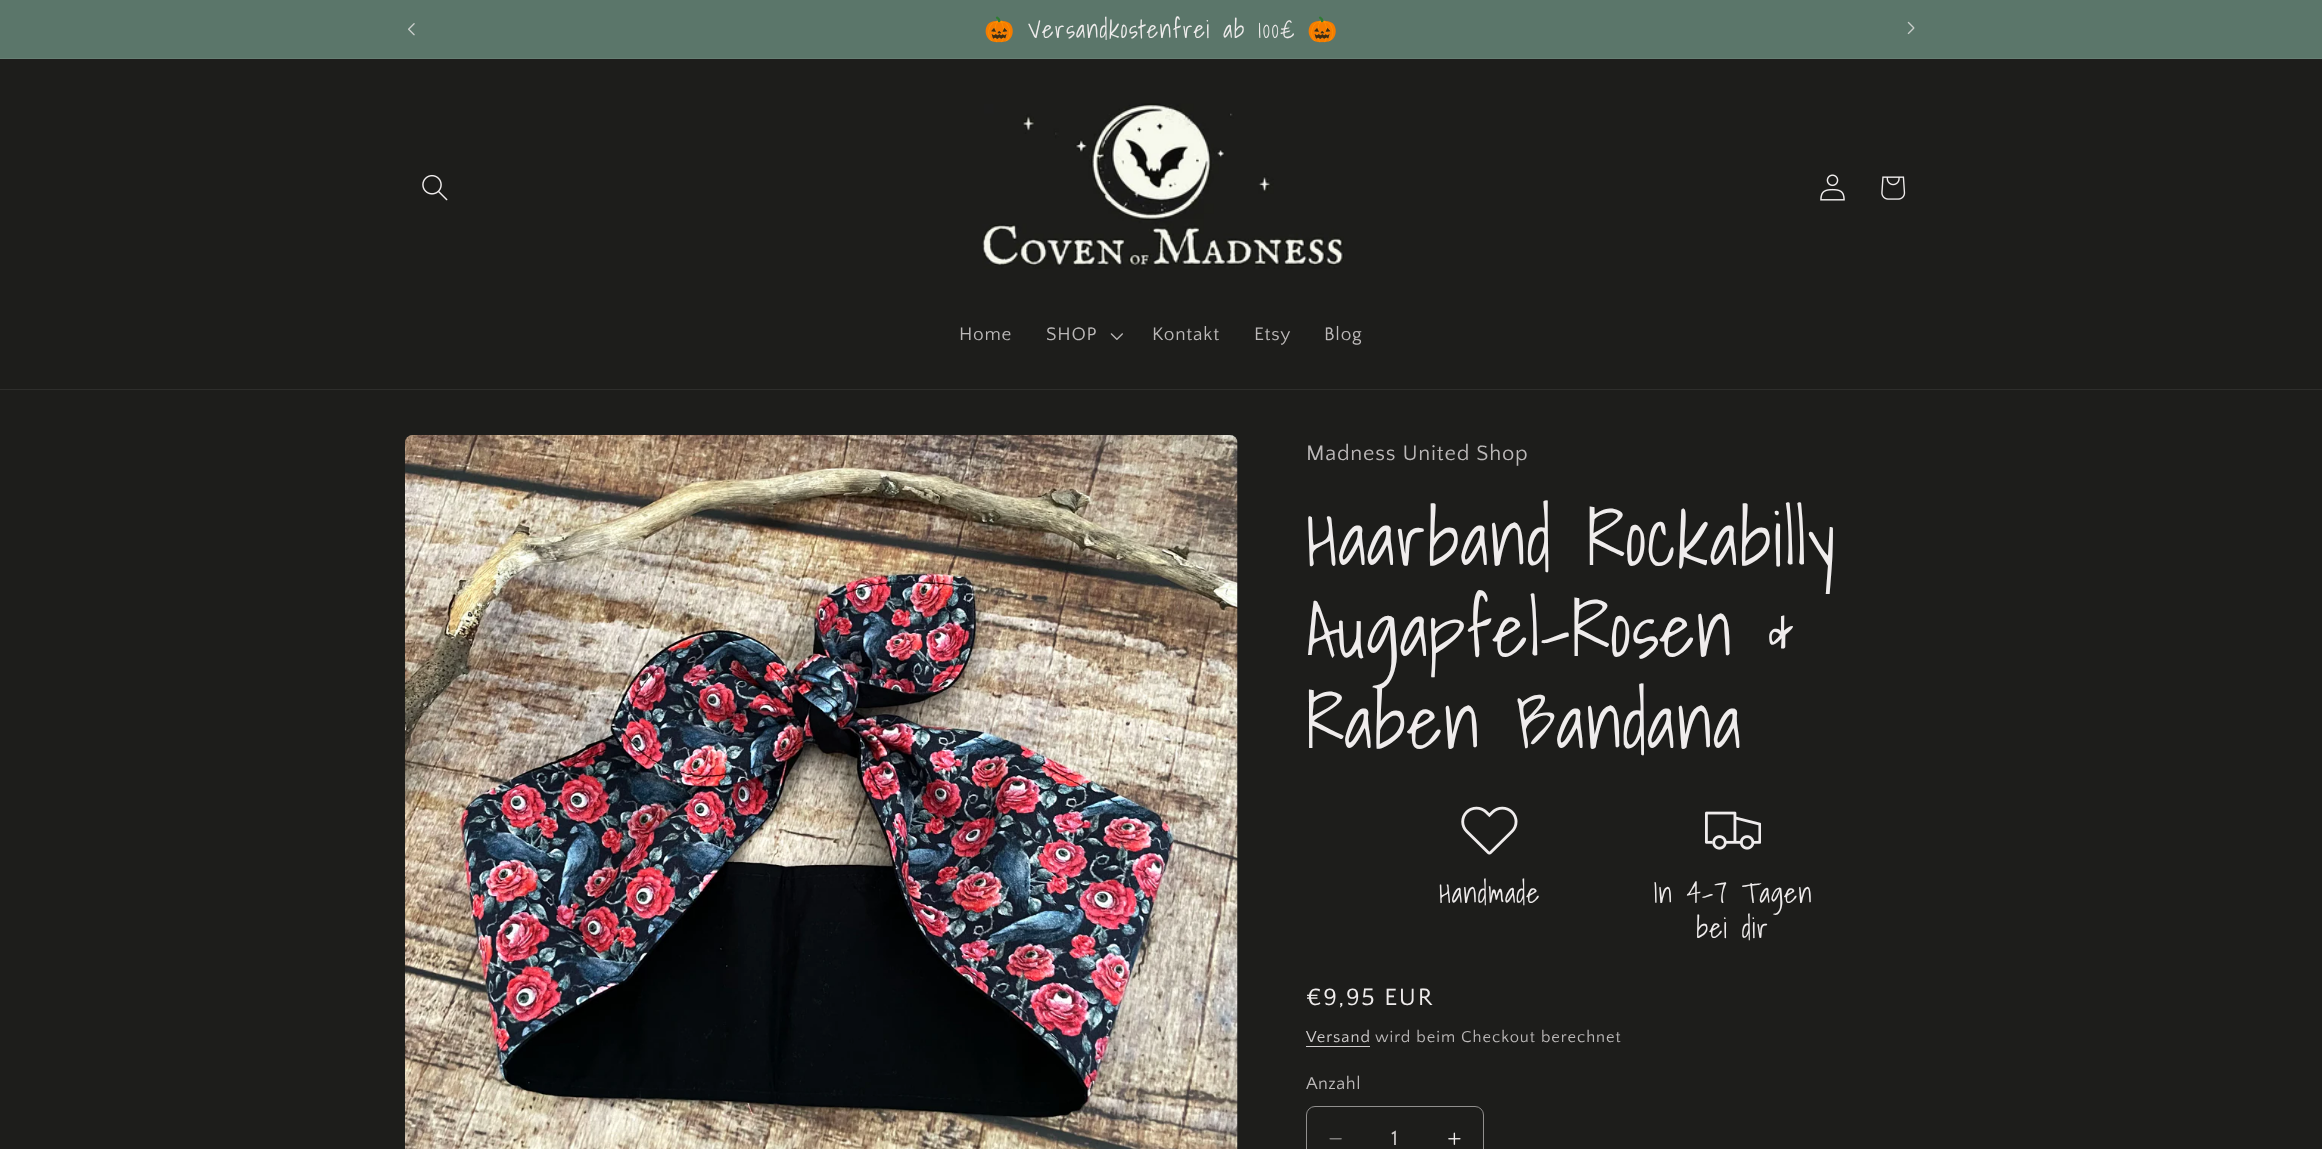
async function draw(canvas) {
	canvas.width = 2322;
	canvas.height = 1149;
	const c = canvas.getContext('2d');
	c.miterLimit = 4;
	c.fontKerning = 'normal';
	async function loadImage(src) {
		const img = new Image();
		img.src = src;
		await img.decode();
		return img;
	}

	c.fillStyle = '#1d1d1b';
	c.fillRect(0, 0, 2322, 1149);
	c.fillStyle = '#5b766a';
	c.fillRect(0, 0, 2322, 58);
	c.fillStyle = '#677f74';
	c.fillRect(0, 58, 2322, 1);
	c.drawImage(await loadImage('img1.png'), 408, 23, 7, 13);
	c.letterSpacing = '1.4px';
	c.font = '24.4px Noto Color Emoji';
	c.fillStyle = '#efecec';
	c.fillText('🎃', 984, 38);
	c.font = '24.4px Shadows Into Light';
	c.fillText('Versandkostenfrei ab 100€', 1028, 38);
	c.font = '24.4px Noto Color Emoji';
	c.fillText('🎃', 1307, 38);
	c.drawImage(await loadImage('img2.png'), 1907, 21, 8, 14);
	c.fillStyle = '#2e2e2c';
	c.fillRect(0, 389, 2322, 1);
	c.drawImage(await loadImage('img3.png'), 422, 174, 26, 27);
	c.drawImage(await loadImage('img4.png'), 982, 103, 362, 166);
	c.drawImage(await loadImage('img5.png'), 1820, 174, 25, 27);
	c.drawImage(await loadImage('img6.png'), 1881, 176, 25, 24);
	c.letterSpacing = '0.8px';
	c.font = '19px Quattrocento Sans';
	c.fillStyle = '#bbb8b8';
	c.fillText('Home', 959, 340);
	c.fillText('SHOP', 1046, 340);
	c.drawImage(await loadImage('img7.png'), 1110, 333, 13, 7);
	for (const [text, x, y] of [
		['Kontakt', 1152, 340],
		['Etsy', 1254, 340],
		['Blog', 1324, 340],
	]) {
		c.fillText(text, x, y);
	}
	c.drawImage(await loadImage('img8.png'), 405, 435, 833, 714);
	c.font = '22px Quattrocento Sans';
	c.fillText('Madness United Shop', 1306, 460);
	c.letterSpacing = '1.1px';
	c.font = '75px Shadows Into Light';
	c.fillStyle = '#efecec';
	for (const [text, x, y] of [
		['Haarband Rockabilly', 1306, 566],
		['Augapfel-Rosen &', 1306, 657],
		['Raben Bandana', 1306, 749],
	]) {
		c.fillText(text, x, y);
	}
	c.drawImage(await loadImage('img9.png'), 1461, 806, 57, 49);
	c.font = '28px Shadows Into Light';
	c.fillText('Handmade', 1439, 903);
	c.drawImage(await loadImage('img10.png'), 1705, 811, 56, 39);
	c.fillText('In 4-7 Tagen', 1653, 903);
	c.fillText('bei dir', 1696, 938);
	c.letterSpacing = '1.75px';
	c.font = '24.75px Quattrocento Sans';
	c.fillText('€9,95 EUR', 1306, 1005);
	c.letterSpacing = '0.95px';
	c.font = '16.5px Quattrocento Sans';
	c.fillStyle = '#d0cdcd';
	c.fillText('Versand', 1306, 1042);
	c.fillRect(1306, 1046, 64, 1);
	c.fillStyle = '#bbb8b8';
	c.fillText('wird beim Checkout berechnet', 1375, 1042);
	c.letterSpacing = '0.5px';
	c.font = '18px Quattrocento Sans';
	c.fillText('Anzahl', 1306, 1089);
	c.drawImage(await loadImage('img11.png'), 1329, 1138, 13, 2);
	c.drawImage(await loadImage('img12.png'), 1448, 1132, 13, 13);
	c.beginPath();
	c.roundRect(1306.5, 1106.5, 177, 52, 8.5);
	c.strokeStyle = '#918f8e';
	c.stroke();
	c.letterSpacing = '0px';
	c.font = '22px Quattrocento Sans';
	c.fillStyle = '#d0cdcd';
	c.fillText('1', 1391, 1145);
}

draw(document.querySelector('canvas'));
